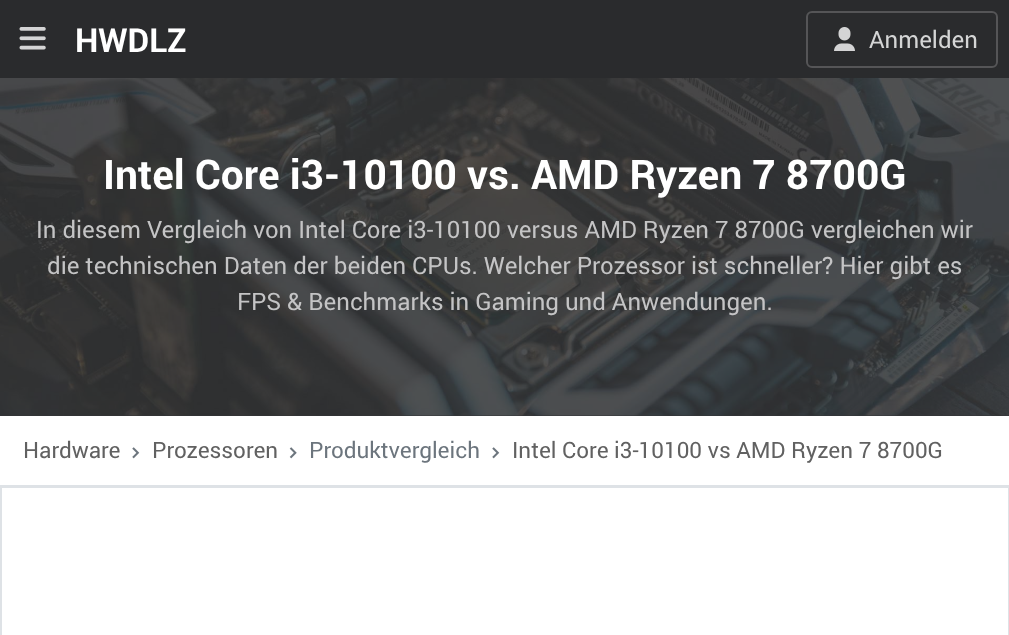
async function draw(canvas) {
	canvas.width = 1009;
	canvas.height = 635;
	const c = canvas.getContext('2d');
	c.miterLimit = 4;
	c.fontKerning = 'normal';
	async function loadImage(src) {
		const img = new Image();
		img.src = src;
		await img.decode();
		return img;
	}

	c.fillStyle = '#fff';
	c.fillRect(0, 0, 1009, 635);
	c.fillStyle = '#2a2b2d';
	c.fillRect(0, 0, 1009, 78);
	c.drawImage(await loadImage('img1.png'), 19, 27, 27, 23);
	c.font = 'bold 33px Roboto';
	c.fillStyle = '#fff';
	c.fillText('HWDLZ', 75, 52);
	c.beginPath();
	c.roundRect(807, 12, 190, 55, 5);
	c.strokeStyle = '#555557';
	c.lineWidth = 2;
	c.stroke();
	c.drawImage(await loadImage('img2.png'), 834, 27, 21, 24);
	c.font = '24px Roboto';
	c.fillStyle = '#d4d5d5';
	c.fillText('Anmelden', 869, 48);
	c.fillStyle = '#353638';
	c.fillRect(0, 78, 1009, 338);
	c.drawImage(await loadImage('img3.png'), 0, 78, 1009, 338);
	c.font = 'bold 40.75px Roboto';
	c.fillStyle = '#fff';
	c.fillText('Intel Core i3-10100 vs. AMD Ryzen 7 8700G', 103, 189);
	c.font = '24px Roboto';
	c.fillStyle = '#c4c4c5';
	for (const [text, x, y] of [
		['In diesem Vergleich von Intel Core i3-10100 versus AMD Ryzen 7 8700G vergleichen wir', 36, 238],
		['die technischen Daten der beiden CPUs. Welcher Prozessor ist schneller? Hier gibt es', 47, 274],
		['FPS & Benchmarks in Gaming und Anwendungen.', 237, 310],
	]) {
		c.fillText(text, x, y);
	}
	c.fillStyle = '#dee2e6';
	c.fillRect(0, 485, 1009, 1);
	c.font = '22.5px Roboto';
	c.fillStyle = '#616161';
	c.fillText('Hardware', 23, 458);
	c.drawImage(await loadImage('img4.png'), 132, 447, 8, 12);
	c.fillText('Prozessoren', 152, 458);
	c.drawImage(await loadImage('img5.png'), 289, 447, 8, 12);
	c.fillStyle = '#6c757d';
	c.fillText('Produktvergleich', 309, 458);
	c.drawImage(await loadImage('img4.png'), 492, 447, 8, 12);
	c.fillStyle = '#616161';
	c.fillText('Intel Core i3-10100 vs AMD Ryzen 7 8700G', 512, 458);
	c.strokeStyle = '#dee2e6';
	c.strokeRect(1, 487, 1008, 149);
}

draw(document.querySelector('canvas'));
